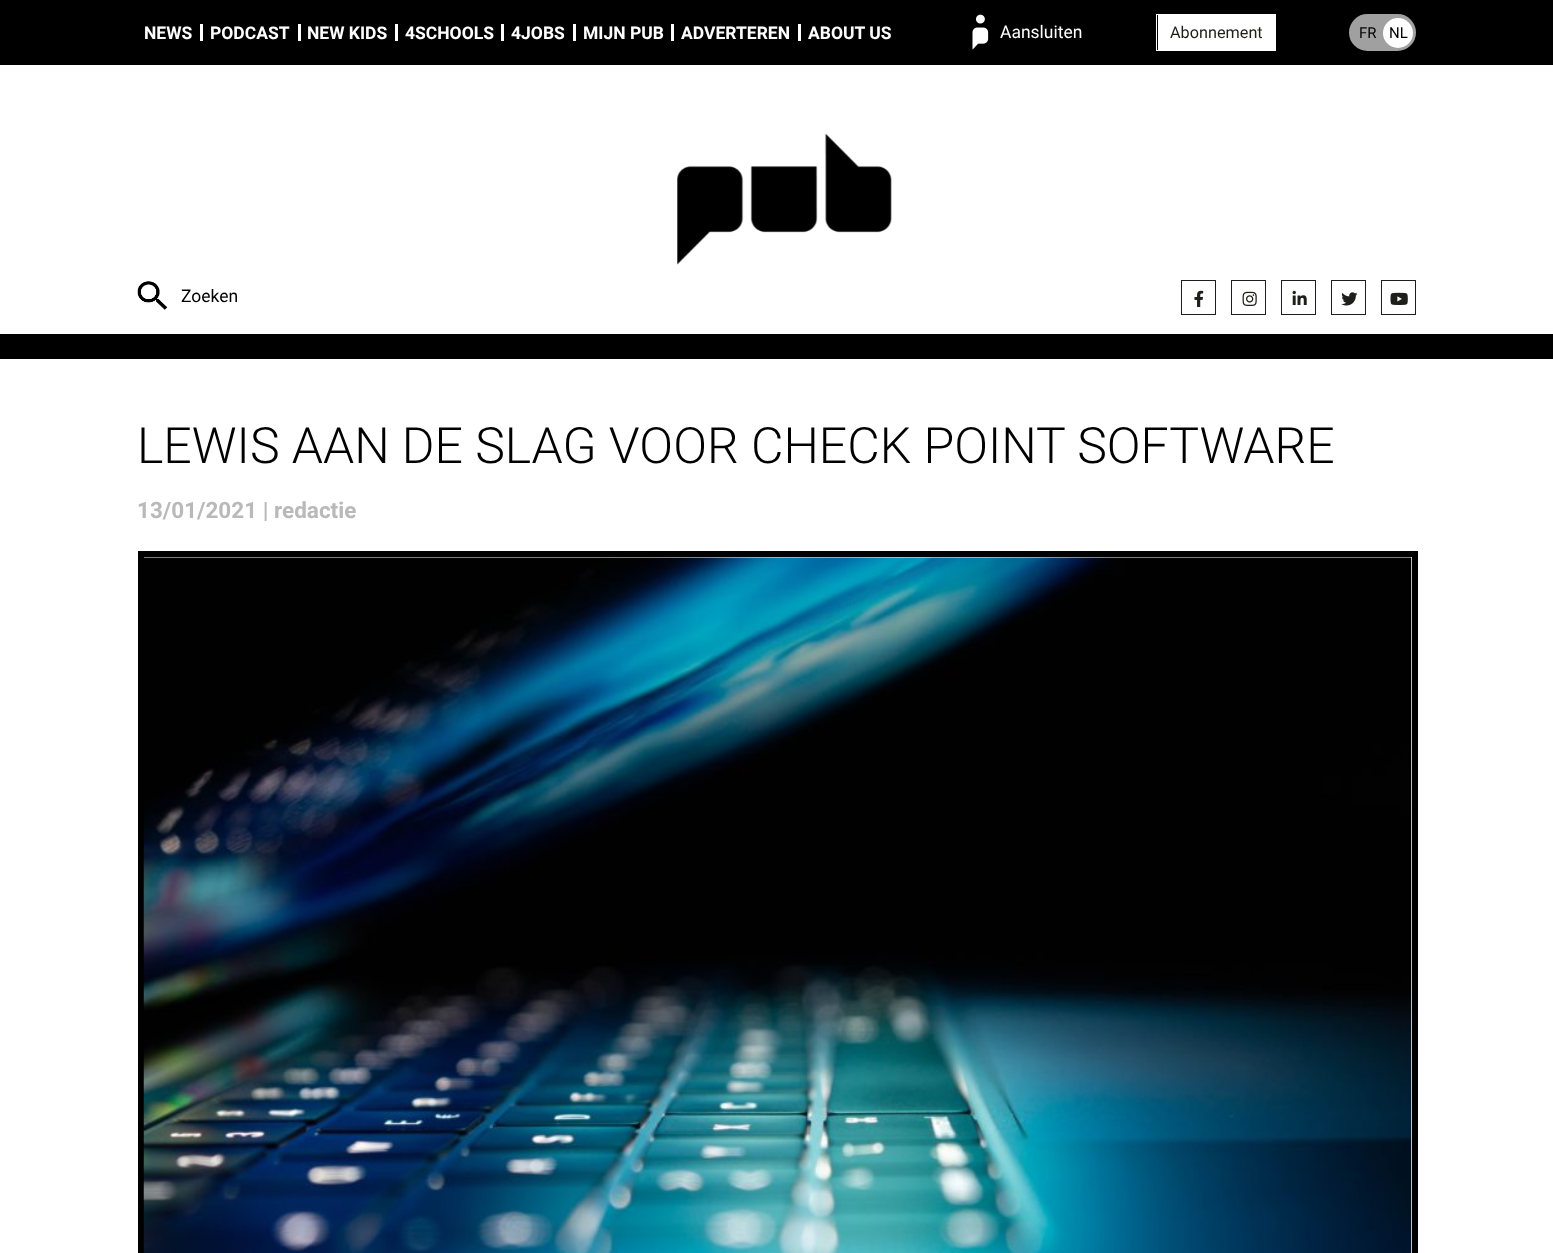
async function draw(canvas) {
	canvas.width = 1553;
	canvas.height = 1253;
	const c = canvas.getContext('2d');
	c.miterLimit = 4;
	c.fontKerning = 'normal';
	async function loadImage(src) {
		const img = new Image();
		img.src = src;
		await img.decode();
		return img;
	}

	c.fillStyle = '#fff';
	c.fillRect(0, 0, 1553, 1253);
	c.fillStyle = '#000';
	c.fillRect(0, 0, 1553, 65);
	c.font = 'bold 17.5px Roboto';
	c.fillStyle = '#fff';
	c.fillText('NEWS', 144, 39);
	c.fillRect(200, 24, 3, 17);
	c.fillText('PODCAST', 210, 39);
	c.fillRect(298, 24, 3, 17);
	c.fillText('NEW KIDS', 307, 39);
	c.fillRect(395, 24, 3, 17);
	c.fillText('4SCHOOLS', 405, 39);
	c.fillRect(501, 24, 3, 17);
	c.fillText('4JOBS', 511, 39);
	c.fillRect(573, 24, 3, 17);
	c.fillText('MIJN PUB', 583, 39);
	c.fillRect(671, 24, 3, 17);
	c.fillText('ADVERTEREN', 681, 39);
	c.fillRect(798, 24, 3, 17);
	c.fillText('ABOUT US', 808, 39);
	c.drawImage(await loadImage('img1.png'), 972, 14, 17, 36);
	c.font = '17.5px Roboto';
	c.fillText('Aansluiten', 1000, 38);
	c.strokeStyle = '#fff';
	c.strokeRect(1156.5, 14.5, 119, 36);
	c.fillRect(1158, 15, 117, 35);
	c.font = '16.25px Roboto';
	c.fillStyle = '#1e1e1b';
	c.fillText('Abonnement', 1170, 38);
	c.fillStyle = '#a0a0a0';
	c.beginPath();
	c.roundRect(1351, 16, 63, 33, 16.5);
	c.fill();
	c.strokeStyle = '#a0a0a0';
	c.lineWidth = 4;
	c.stroke();
	c.font = '15px Roboto';
	c.fillStyle = '#000';
	c.fillText('FR', 1359, 38);
	c.fillStyle = '#fff';
	c.beginPath();
	c.arc(1398, 33, 15, 0, 2 * Math.PI);
	c.fill();
	c.fillStyle = '#000';
	c.fillText('NL', 1389, 38);
	c.fillRect(0, 334, 1553, 25);
	c.drawImage(await loadImage('img2.png'), 677, 133, 215, 132);
	c.drawImage(await loadImage('img3.png'), 137, 281, 31, 29);
	c.font = '17.5px Roboto';
	c.fillText('Zoeken', 181, 302);
	c.strokeStyle = '#1e1e1b';
	c.lineWidth = 1;
	c.strokeRect(1181.5, 280.5, 34, 34);
	c.drawImage(await loadImage('img4.png'), 1194, 290, 10, 17);
	c.strokeRect(1231.5, 280.5, 34, 34);
	c.drawImage(await loadImage('img5.png'), 1242, 291, 15, 15);
	c.strokeRect(1281.5, 280.5, 34, 34);
	c.drawImage(await loadImage('img6.png'), 1292, 290, 15, 15);
	c.strokeRect(1331.5, 280.5, 34, 34);
	c.drawImage(await loadImage('img7.png'), 1341, 292, 17, 14);
	c.strokeRect(1381.5, 280.5, 34, 34);
	c.drawImage(await loadImage('img8.png'), 1390, 292, 18, 13);
	c.font = '300 50px Roboto';
	c.fillText('LEWIS AAN DE SLAG VOOR CHECK POINT SOFTWARE', 137, 463);
	c.font = 'bold 22.5px Roboto';
	c.fillStyle = '#b9b9b9';
	c.fillText('13/01/2021 | redactie', 137, 518);
	c.strokeStyle = '#000';
	c.lineWidth = 6;
	c.strokeRect(141, 554, 1274, 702);
	c.drawImage(await loadImage('img9.png'), 143, 557, 1269, 696);
}

draw(document.querySelector('canvas'));
